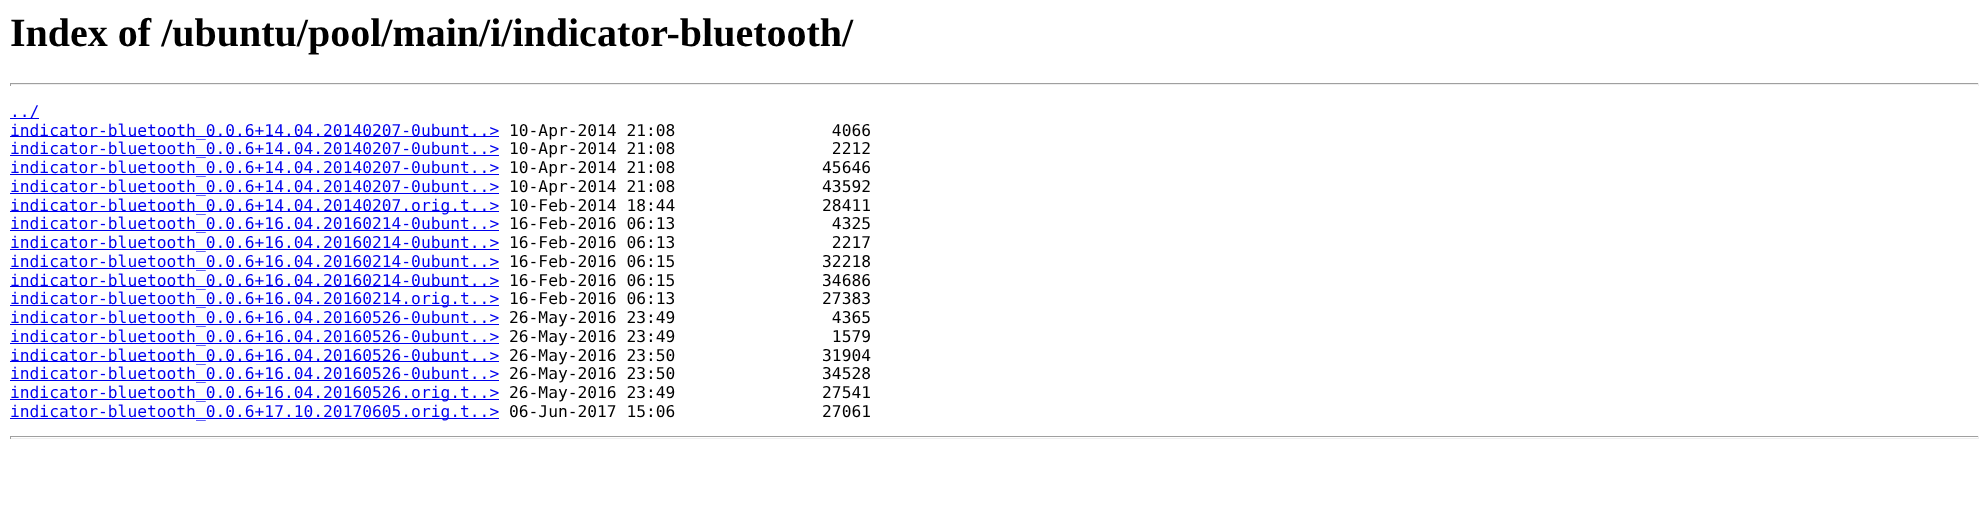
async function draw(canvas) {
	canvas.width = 1988;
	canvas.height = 512;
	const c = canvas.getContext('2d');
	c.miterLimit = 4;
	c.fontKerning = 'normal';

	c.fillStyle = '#fff';
	c.fillRect(0, 0, 1988, 512);
	c.font = 'bold 40px Liberation Serif';
	c.fillStyle = '#000';
	c.fillText('Index of /ubuntu/pool/main/i/indicator-bluetooth/', 10, 46);
	for (const [x, y, w, h, color] of [
		[10, 83, 1969, 1, '#9f9f9f'],
		[1978, 83, 1, 3, '#eee'],
		[10, 84, 1969, 1, '#eee'],
		[10, 83, 1, 3, '#9f9f9f'],
		[10, 118, 29, 1, '#00e'],
	]) {
		c.fillStyle = color;
		c.fillRect(x, y, w, h);
	}
	c.font = '16.25px DejaVu Sans Mono';
	c.fillText('../', 10, 117);
	c.fillRect(10, 136, 489, 1);
	c.fillText('indicator-bluetooth_0.0.6+14.04.20140207-0ubunt..>', 10, 136);
	c.fillStyle = '#000';
	c.fillText('10-Apr-2014 21:08                4066', 509, 136);
	c.fillStyle = '#00e';
	c.fillRect(10, 155, 489, 1);
	c.fillText('indicator-bluetooth_0.0.6+14.04.20140207-0ubunt..>', 10, 154);
	c.fillStyle = '#000';
	c.fillText('10-Apr-2014 21:08                2212', 509, 154);
	c.fillStyle = '#00e';
	c.fillRect(10, 174, 489, 1);
	c.fillText('indicator-bluetooth_0.0.6+14.04.20140207-0ubunt..>', 10, 173);
	c.fillStyle = '#000';
	c.fillText('10-Apr-2014 21:08               45646', 509, 173);
	c.fillStyle = '#00e';
	c.fillRect(10, 193, 489, 1);
	c.fillText('indicator-bluetooth_0.0.6+14.04.20140207-0ubunt..>', 10, 192);
	c.fillStyle = '#000';
	c.fillText('10-Apr-2014 21:08               43592', 509, 192);
	c.fillStyle = '#00e';
	c.fillRect(10, 211, 489, 1);
	c.fillText('indicator-bluetooth_0.0.6+14.04.20140207.orig.t..>', 10, 211);
	c.fillStyle = '#000';
	c.fillText('10-Feb-2014 18:44               28411', 509, 211);
	c.fillStyle = '#00e';
	c.fillRect(10, 230, 489, 1);
	c.fillText('indicator-bluetooth_0.0.6+16.04.20160214-0ubunt..>', 10, 229);
	c.fillStyle = '#000';
	c.fillText('16-Feb-2016 06:13                4325', 509, 229);
	c.fillStyle = '#00e';
	c.fillRect(10, 249, 489, 1);
	c.fillText('indicator-bluetooth_0.0.6+16.04.20160214-0ubunt..>', 10, 248);
	c.fillStyle = '#000';
	c.fillText('16-Feb-2016 06:13                2217', 509, 248);
	c.fillStyle = '#00e';
	c.fillRect(10, 268, 489, 1);
	c.fillText('indicator-bluetooth_0.0.6+16.04.20160214-0ubunt..>', 10, 267);
	c.fillStyle = '#000';
	c.fillText('16-Feb-2016 06:15               32218', 509, 267);
	c.fillStyle = '#00e';
	c.fillRect(10, 286, 489, 1);
	c.fillText('indicator-bluetooth_0.0.6+16.04.20160214-0ubunt..>', 10, 286);
	c.fillStyle = '#000';
	c.fillText('16-Feb-2016 06:15               34686', 509, 286);
	c.fillStyle = '#00e';
	c.fillRect(10, 305, 489, 1);
	c.fillText('indicator-bluetooth_0.0.6+16.04.20160214.orig.t..>', 10, 304);
	c.fillStyle = '#000';
	c.fillText('16-Feb-2016 06:13               27383', 509, 304);
	c.fillStyle = '#00e';
	c.fillRect(10, 324, 489, 1);
	c.fillText('indicator-bluetooth_0.0.6+16.04.20160526-0ubunt..>', 10, 323);
	c.fillStyle = '#000';
	c.fillText('26-May-2016 23:49                4365', 509, 323);
	c.fillStyle = '#00e';
	c.fillRect(10, 343, 489, 1);
	c.fillText('indicator-bluetooth_0.0.6+16.04.20160526-0ubunt..>', 10, 342);
	c.fillStyle = '#000';
	c.fillText('26-May-2016 23:49                1579', 509, 342);
	c.fillStyle = '#00e';
	c.fillRect(10, 361, 489, 1);
	c.fillText('indicator-bluetooth_0.0.6+16.04.20160526-0ubunt..>', 10, 361);
	c.fillStyle = '#000';
	c.fillText('26-May-2016 23:50               31904', 509, 361);
	c.fillStyle = '#00e';
	c.fillRect(10, 380, 489, 1);
	c.fillText('indicator-bluetooth_0.0.6+16.04.20160526-0ubunt..>', 10, 379);
	c.fillStyle = '#000';
	c.fillText('26-May-2016 23:50               34528', 509, 379);
	c.fillStyle = '#00e';
	c.fillRect(10, 399, 489, 1);
	c.fillText('indicator-bluetooth_0.0.6+16.04.20160526.orig.t..>', 10, 398);
	c.fillStyle = '#000';
	c.fillText('26-May-2016 23:49               27541', 509, 398);
	c.fillStyle = '#00e';
	c.fillRect(10, 418, 489, 1);
	c.fillText('indicator-bluetooth_0.0.6+17.10.20170605.orig.t..>', 10, 417);
	c.fillStyle = '#000';
	c.fillText('06-Jun-2017 15:06               27061', 509, 417);
	for (const [x, y, w, h, color] of [
		[10, 436, 1969, 1, '#9f9f9f'],
		[1978, 436, 1, 3, '#eee'],
		[10, 438, 1969, 1, '#eee'],
		[10, 436, 1, 3, '#9f9f9f'],
	]) {
		c.fillStyle = color;
		c.fillRect(x, y, w, h);
	}
}

draw(document.querySelector('canvas'));
